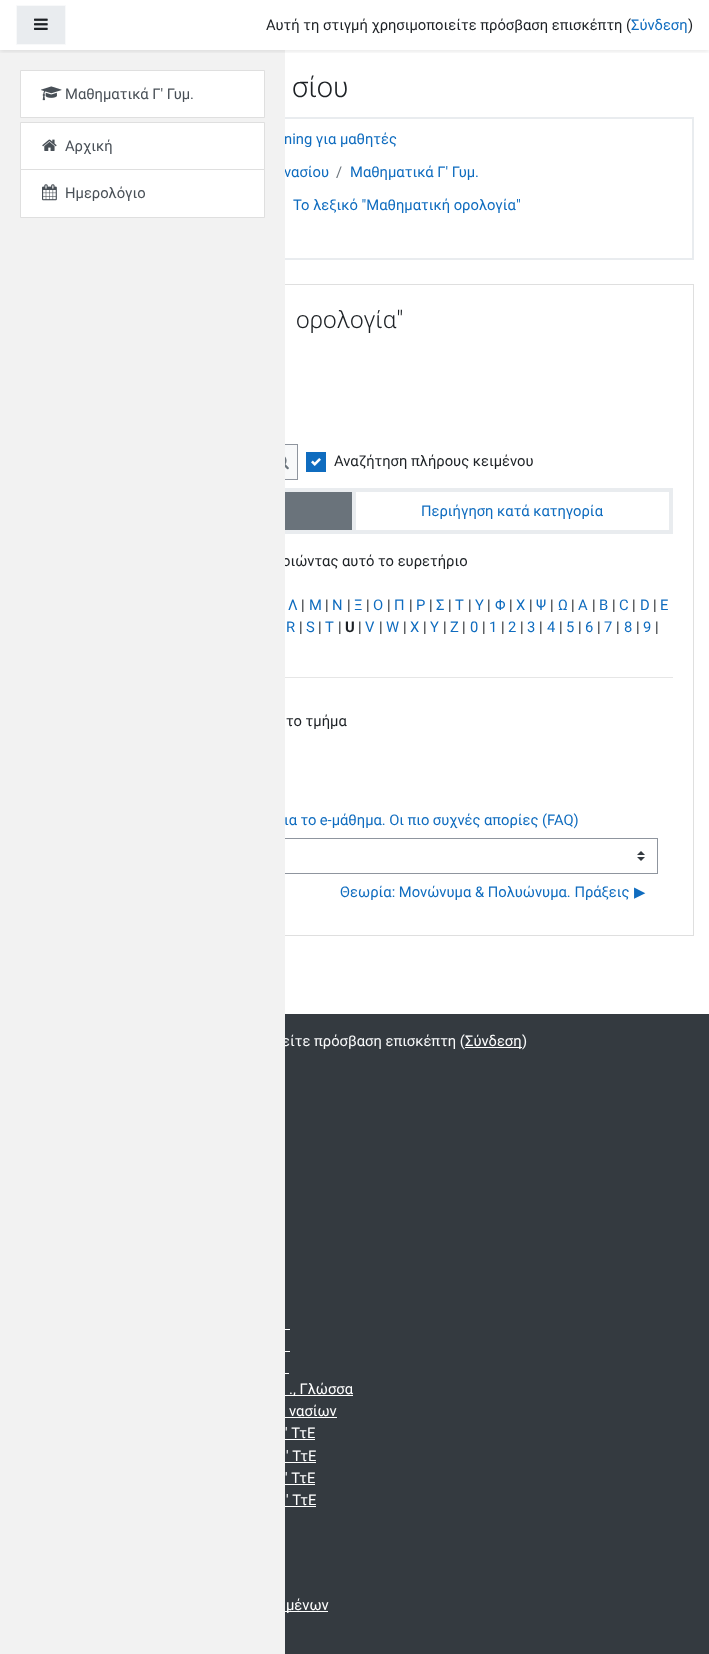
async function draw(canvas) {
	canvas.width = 709;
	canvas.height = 1654;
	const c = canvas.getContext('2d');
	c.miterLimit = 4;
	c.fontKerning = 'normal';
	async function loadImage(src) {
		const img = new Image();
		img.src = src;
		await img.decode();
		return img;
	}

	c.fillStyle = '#fff';
	c.fillRect(0, 0, 709, 1654);
	c.strokeStyle = '#e9ecef';
	c.lineWidth = 2;
	c.strokeRect(16, 118, 677, 141);
	c.font = '14.75px Roboto';
	c.fillStyle = '#0f6cbf';
	c.fillText('ning για μαθητές', 284, 144);
	c.fillText('νασίου', 284, 177);
	c.strokeStyle = '#dfdfdf';
	c.lineWidth = 1;
	c.strokeRect(15.5, 284.5, 678, 651);
	c.fillStyle = '#f8f9fa';
	c.fillRect(285, 445, 12, 34);
	c.strokeStyle = '#8f959e';
	c.strokeRect(264.5, 444.5, 33, 35);
	c.fillStyle = '#1d2125';
	c.fillText('οιώντας αυτό το ευρετήριο', 282, 566);
	c.wordSpacing = '-0.25px';
	c.fillStyle = '#0f6cbf';
	c.fillText('ια το e-μάθημα. Οι πιο συχνές απορίες (FAQ)', 284, 825);
	c.drawImage(await loadImage('img7.png'), 637, 851, 8, 10);
	c.strokeRect(51.5, 838.5, 606, 35);
	c.fillStyle = '#343a40';
	c.fillRect(285, 1014, 424, 640);
	c.wordSpacing = '0px';
	c.fillStyle = '#f8f9fa';
	c.fillText('είτε πρόσβαση επισκέπτη (', 282, 1046);
	c.fillStyle = '#f2f2f2';
	c.fillRect(0, 50, 285, 1604);
	c.save();
	c.beginPath();
	c.rect(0, 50, 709, 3);
	c.clip();
	c.fillStyle = '#00000014';
	c.filter = 'blur(2px)';
	c.beginPath();
	c.rect(0, 2, 709, 50);
	c.fill();
	c.filter = 'none';
	c.restore();
	c.fillStyle = '#e9ecef';
	c.beginPath();
	c.rect(16.5, 5.5, 49, 39);
	c.fill();
	c.strokeStyle = '#f8f9fa';
	c.stroke();
	c.drawImage(await loadImage('img1.png'), 34, 18, 14, 12);
	c.fillStyle = '#1d2125';
	c.fillText('Αυτή τη στιγμή χρησιμοποιείτε πρόσβαση επισκέπτη (', 266, 30);
	c.fillStyle = '#0f6cbf';
	c.fillText('Σύνδεση', 631, 30);
	c.fillStyle = '#1d2125';
	c.fillText(')', 688, 30);
	c.fillStyle = '#fff';
	c.beginPath();
	c.rect(20.5, 70.5, 244, 47);
	c.fill();
	c.strokeStyle = '#dfdfdf';
	c.stroke();
	c.drawImage(await loadImage('img2.png'), 41, 86, 21, 15);
	c.fillStyle = '#495057';
	c.fillText('Μαθηματικά Γ\' Γυμ.', 65, 99);
	c.fillStyle = '#fff';
	c.beginPath();
	c.rect(20.5, 122.5, 244, 47);
	c.fill();
	c.stroke();
	c.drawImage(await loadImage('img3.png'), 42, 139, 15, 12);
	c.fillStyle = '#495057';
	c.fillText('Αρχική', 65, 151);
	c.fillStyle = '#fff';
	c.beginPath();
	c.rect(20.5, 169.5, 244, 48);
	c.fill();
	c.stroke();
	c.drawImage(await loadImage('img4.png'), 42, 184, 15, 17);
	c.fillStyle = '#495057';
	c.fillText('Ημερολόγιο', 65, 198);
	c.font = '300 29px Roboto';
	c.fillStyle = '#1d2125';
	c.fillText('σίου', 292, 97);
	c.font = '14.75px Roboto';
	c.fillStyle = '#6a737b';
	c.fillText('/', 336, 177);
	c.fillStyle = '#0f6cbf';
	c.fillText('Μαθηματικά Γ\' Γυμ.', 350, 177);
	c.fillText('Το λεξικό "Μαθηματική ορολογία"', 293, 210);
	c.font = '300 24.25px Roboto';
	c.fillStyle = '#1d2125';
	c.fillText('ορολογία"', 296, 328);
	c.drawImage(await loadImage('img5.png'), 285, 456, 4, 14);
	c.fillStyle = '#0f6cbf';
	c.fillRect(306, 452, 20, 20);
	c.font = '14.75px Roboto';
	c.fillStyle = '#1d2125';
	c.fillText('Αναζήτηση πλήρους κειμένου', 334, 466);
	c.drawImage(await loadImage('img6.png'), 311, 458, 10, 8);
	for (const [x, y, w, h, color] of [
		[285, 488, 388, 46, '#e9ecef'],
		[285, 492, 67, 38, '#6a737b'],
		[356, 492, 313, 38, '#fff'],
	]) {
		c.fillStyle = color;
		c.fillRect(x, y, w, h);
	}
	c.fillStyle = '#0f6cbf';
	c.fillText('Περιήγηση κατά κατηγορία', 421, 516);
	c.fillText('Λ', 288, 610);
	c.fillStyle = '#1d2125';
	c.fillText('|', 301, 610);
	c.fillStyle = '#0f6cbf';
	c.fillText('Μ', 309, 610);
	c.fillStyle = '#1d2125';
	c.fillText('|', 325, 610);
	c.fillStyle = '#0f6cbf';
	c.fillText('Ν', 332, 610);
	c.fillStyle = '#1d2125';
	c.fillText('|', 347, 610);
	c.fillStyle = '#0f6cbf';
	c.fillText('Ξ', 354, 610);
	c.fillStyle = '#1d2125';
	c.fillText('|', 366, 610);
	c.fillStyle = '#0f6cbf';
	c.fillText('Ο', 373, 610);
	c.fillStyle = '#1d2125';
	c.fillText('|', 387, 610);
	c.fillStyle = '#0f6cbf';
	c.fillText('Π', 394, 610);
	c.fillStyle = '#1d2125';
	c.fillText('|', 409, 610);
	c.fillStyle = '#0f6cbf';
	c.fillText('Ρ', 416, 610);
	c.fillStyle = '#1d2125';
	c.fillText('|', 429, 610);
	c.fillStyle = '#0f6cbf';
	c.fillText('Σ', 436, 610);
	c.fillStyle = '#1d2125';
	c.fillText('|', 448, 610);
	c.fillStyle = '#0f6cbf';
	c.fillText('Τ', 455, 610);
	c.fillStyle = '#1d2125';
	c.fillText('|', 468, 610);
	c.fillStyle = '#0f6cbf';
	c.fillText('Υ', 475, 610);
	c.fillStyle = '#1d2125';
	c.fillText('|', 487, 610);
	c.fillStyle = '#0f6cbf';
	c.fillText('Φ', 495, 610);
	c.fillStyle = '#1d2125';
	c.fillText('|', 509, 610);
	c.fillStyle = '#0f6cbf';
	c.fillText('Χ', 516, 610);
	c.fillStyle = '#1d2125';
	c.fillText('|', 529, 610);
	c.fillStyle = '#0f6cbf';
	c.fillText('Ψ', 536, 610);
	c.fillStyle = '#1d2125';
	c.fillText('|', 550, 610);
	c.fillStyle = '#0f6cbf';
	c.fillText('Ω', 558, 610);
	c.fillStyle = '#1d2125';
	c.fillText('|', 571, 610);
	c.fillStyle = '#0f6cbf';
	c.fillText('A', 578, 610);
	c.fillStyle = '#1d2125';
	c.fillText('|', 592, 610);
	c.fillStyle = '#0f6cbf';
	c.fillText('B', 599, 610);
	c.fillStyle = '#1d2125';
	c.fillText('|', 612, 610);
	c.fillStyle = '#0f6cbf';
	c.fillText('C', 619, 610);
	c.fillStyle = '#1d2125';
	c.fillText('|', 632, 610);
	c.fillStyle = '#0f6cbf';
	c.fillText('D', 640, 610);
	c.fillStyle = '#1d2125';
	c.fillText('|', 653, 610);
	c.fillStyle = '#0f6cbf';
	c.fillText('E', 660, 610);
	c.fillText('R', 286, 632);
	c.fillStyle = '#1d2125';
	c.fillText('|', 299, 632);
	c.fillStyle = '#0f6cbf';
	c.fillText('S', 306, 632);
	c.fillStyle = '#1d2125';
	c.fillText('|', 318, 632);
	c.fillStyle = '#0f6cbf';
	c.fillText('T', 325, 632);
	c.fillStyle = '#1d2125';
	c.fillText('|', 338, 632);
	c.font = 'bold 14.75px Roboto';
	c.fillText('U', 345, 632);
	c.font = '14.75px Roboto';
	c.fillText('|', 358, 632);
	c.fillStyle = '#0f6cbf';
	c.fillText('V', 365, 632);
	c.fillStyle = '#1d2125';
	c.fillText('|', 379, 632);
	c.fillStyle = '#0f6cbf';
	c.fillText('W', 386, 632);
	c.fillStyle = '#1d2125';
	c.fillText('|', 403, 632);
	c.fillStyle = '#0f6cbf';
	c.fillText('X', 410, 632);
	c.fillStyle = '#1d2125';
	c.fillText('|', 423, 632);
	c.fillStyle = '#0f6cbf';
	c.fillText('Y', 430, 632);
	c.fillStyle = '#1d2125';
	c.fillText('|', 443, 632);
	c.fillStyle = '#0f6cbf';
	c.fillText('Z', 450, 632);
	c.fillStyle = '#1d2125';
	c.fillText('|', 462, 632);
	c.fillStyle = '#0f6cbf';
	c.fillText('0', 470, 632);
	c.fillStyle = '#1d2125';
	c.fillText('|', 482, 632);
	c.fillStyle = '#0f6cbf';
	c.fillText('1', 489, 632);
	c.fillStyle = '#1d2125';
	c.fillText('|', 501, 632);
	c.fillStyle = '#0f6cbf';
	c.fillText('2', 508, 632);
	c.fillStyle = '#1d2125';
	c.fillText('|', 520, 632);
	c.fillStyle = '#0f6cbf';
	c.fillText('3', 527, 632);
	c.fillStyle = '#1d2125';
	c.fillText('|', 539, 632);
	c.fillStyle = '#0f6cbf';
	c.fillText('4', 547, 632);
	c.fillStyle = '#1d2125';
	c.fillText('|', 559, 632);
	c.fillStyle = '#0f6cbf';
	c.fillText('5', 566, 632);
	c.fillStyle = '#1d2125';
	c.fillText('|', 578, 632);
	c.fillStyle = '#0f6cbf';
	c.fillText('6', 585, 632);
	c.fillStyle = '#1d2125';
	c.fillText('|', 597, 632);
	c.fillStyle = '#0f6cbf';
	c.fillText('7', 604, 632);
	c.fillStyle = '#1d2125';
	c.fillText('|', 616, 632);
	c.fillStyle = '#0f6cbf';
	c.fillText('8', 624, 632);
	c.fillStyle = '#1d2125';
	c.fillText('|', 636, 632);
	c.fillStyle = '#0f6cbf';
	c.fillText('9', 643, 632);
	c.fillStyle = '#1d2125';
	c.fillText('|', 655, 632);
	c.fillStyle = '#e6e6e6';
	c.fillRect(285, 677, 388, 1);
	c.fillStyle = '#1d2125';
	c.fillText('το τμήμα', 286, 726);
	c.fillStyle = '#0f6cbf';
	c.fillText('Θεωρία: Μονώνυμα & Πολυώνυμα. Πράξεις', 340, 897);
	c.font = '14.75px DejaVu Sans';
	c.fillText('▶︎', 634, 897);
	c.fillStyle = '#fff';
	c.fillRect(465, 1047, 57, 1);
	c.font = '14.75px Roboto';
	c.fillText('Σύνδεση', 465, 1046);
	c.fillStyle = '#f8f9fa';
	c.fillText(')', 522, 1046);
	for (const [x, y, w, h, color] of [
		[285, 1329, 5, 1, '#fff'],
		[285, 1351, 5, 1, '#fff'],
		[285, 1373, 4, 1, '#fff'],
		[285, 1395, 68, 1, '#fff'],
	]) {
		c.fillStyle = color;
		c.fillRect(x, y, w, h);
	}
	c.fillText('., Γλώσσα', 289, 1394);
	c.fillText('νασίων', 289, 1416);
	c.fillRect(285, 1417, 52, 1);
	c.fillText('\' ΤτΕ', 285, 1438);
	c.fillRect(285, 1439, 30, 1);
	c.fillText('\' ΤτΕ', 286, 1461);
	c.fillRect(285, 1462, 31, 1);
	c.fillText('\' ΤτΕ', 285, 1483);
	c.fillRect(285, 1484, 30, 1);
	c.fillText('\' ΤτΕ', 286, 1505);
	c.fillRect(285, 1506, 31, 1);
	c.fillRect(285, 1611, 43, 1);
	c.fillText('μένων', 286, 1610);
}

draw(document.querySelector('canvas'));
